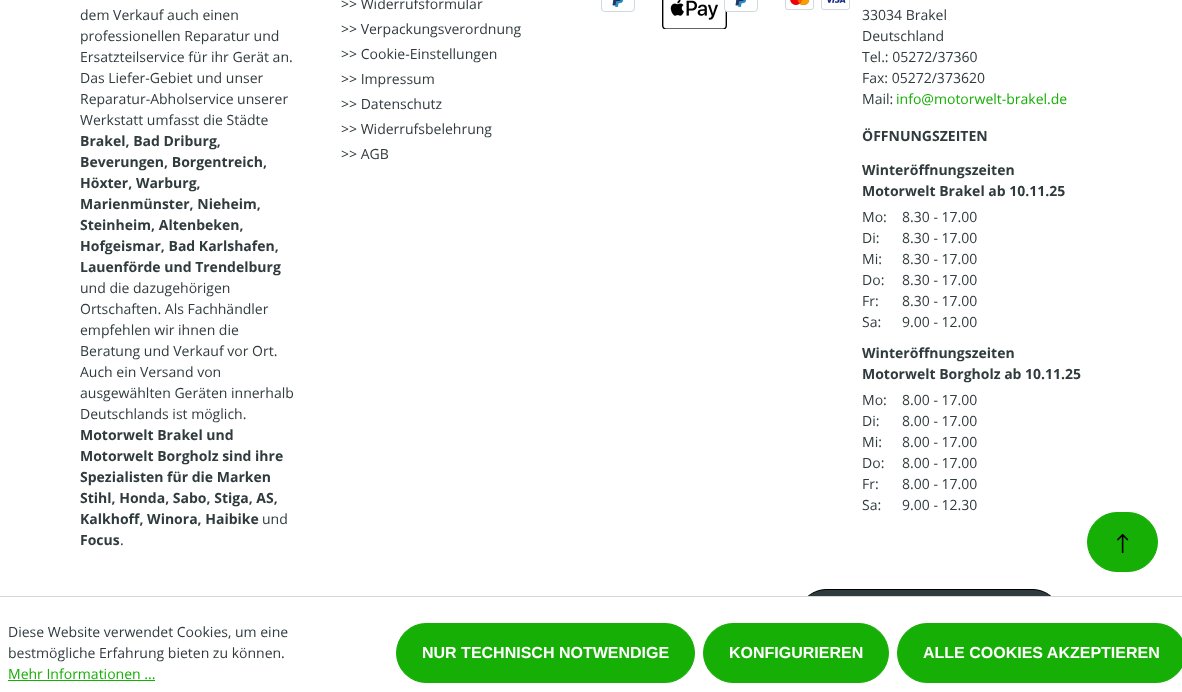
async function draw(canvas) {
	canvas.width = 1182;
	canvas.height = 692;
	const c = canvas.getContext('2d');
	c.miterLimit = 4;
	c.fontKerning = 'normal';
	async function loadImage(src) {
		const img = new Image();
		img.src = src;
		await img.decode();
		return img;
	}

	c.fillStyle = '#fff';
	c.fillRect(0, 0, 1182, 692);
	c.font = '14px Open Sans';
	c.fillStyle = '#303b3e';
	for (const [text, x, y] of [
		['dem Verkauf auch einen', 80, 20],
		['professionellen Reparatur und', 80, 41],
		['Ersatzteilservice für ihr Gerät an.', 80, 62],
		['Das Liefer-Gebiet und unser', 80, 83],
		['Reparatur-Abholservice unserer', 80, 104],
		['Werkstatt umfasst die Städte', 80, 125],
	]) {
		c.fillText(text, x, y);
	}
	c.font = 'bold 14px Open Sans';
	for (const [text, x, y] of [
		['Brakel, Bad Driburg,', 80, 146],
		['Beverungen, Borgentreich,', 80, 167],
		['Höxter, Warburg,', 80, 188],
		['Marienmünster, Nieheim,', 80, 209],
		['Steinheim, Altenbeken,', 80, 230],
		['Hofgeismar, Bad Karlshafen,', 80, 251],
		['Lauenförde und Trendelburg', 80, 272],
	]) {
		c.fillText(text, x, y);
	}
	c.font = '14px Open Sans';
	for (const [text, x, y] of [
		['und die dazugehörigen', 80, 293],
		['Ortschaften. Als Fachhändler', 80, 314],
		['empfehlen wir ihnen die', 80, 335],
		['Beratung und Verkauf vor Ort.', 80, 356],
		['Auch ein Versand von', 80, 377],
		['ausgewählten Geräten innerhalb', 80, 398],
		['Deutschlands ist möglich.', 80, 419],
	]) {
		c.fillText(text, x, y);
	}
	c.font = 'bold 14px Open Sans';
	for (const [text, x, y] of [
		['Motorwelt Brakel und', 80, 440],
		['Motorwelt Borgholz sind ihre', 80, 461],
		['Spezialisten für die Marken', 80, 482],
		['Stihl, Honda, Sabo, Stiga, AS,', 80, 503],
		['Kalkhoff, Winora, Haibike', 80, 524],
	]) {
		c.fillText(text, x, y);
	}
	c.font = '14px Open Sans';
	c.fillText('und', 262, 524);
	c.font = 'bold 14px Open Sans';
	c.fillText('Focus', 80, 545);
	c.font = '14px Open Sans';
	for (const [text, x, y] of [
		['.', 120, 545],
		['>> Widerrufsformular', 341, 9],
		['>> Verpackungsverordnung', 341, 34],
		['>> Cookie-Einstellungen', 341, 59],
		['>> Impressum', 341, 84],
		['>> Datenschutz', 341, 109],
		['>> Widerrufsbelehrung', 341, 134],
		['>> AGB', 341, 159],
	]) {
		c.fillText(text, x, y);
	}
	c.drawImage(await loadImage('img1.png'), 601, 0, 34, 12);
	c.drawImage(await loadImage('img2.png'), 662, 0, 65, 29);
	c.drawImage(await loadImage('img3.png'), 724, 0, 34, 12);
	c.drawImage(await loadImage('img4.png'), 785, 0, 65, 10);
	for (const [text, x, y] of [
		['33034 Brakel', 862, 20],
		['Deutschland', 862, 41],
		['Tel.: 05272/37360', 862, 62],
		['Fax: 05272/373620', 862, 83],
		['Mail:', 862, 104],
	]) {
		c.fillText(text, x, y);
	}
	c.fillStyle = '#16af05';
	c.fillText('info@motorwelt-brakel.de', 896, 104);
	c.font = 'bold 14px Open Sans';
	c.fillStyle = '#303b3e';
	for (const [text, x, y] of [
		['ÖFFNUNGSZEITEN', 862, 141],
		['Winteröffnungszeiten', 862, 175],
		['Motorwelt Brakel ab 10.11.25', 862, 196],
	]) {
		c.fillText(text, x, y);
	}
	c.font = '14px Open Sans';
	for (const [text, x, y] of [
		['Mo:', 862, 222],
		['8.30 - 17.00', 902, 222],
		['Di:', 862, 243],
		['8.30 - 17.00', 902, 243],
		['Mi:', 862, 264],
		['8.30 - 17.00', 902, 264],
		['Do:', 862, 285],
		['8.30 - 17.00', 902, 285],
		['Fr:', 862, 306],
		['8.30 - 17.00', 902, 306],
		['Sa:', 862, 327],
		['9.00 - 12.00', 902, 327],
	]) {
		c.fillText(text, x, y);
	}
	c.font = 'bold 14px Open Sans';
	c.fillText('Winteröffnungszeiten', 862, 358);
	c.fillText('Motorwelt Borgholz ab 10.11.25', 862, 379);
	c.font = '14px Open Sans';
	for (const [text, x, y] of [
		['Mo:', 862, 405],
		['8.00 - 17.00', 902, 405],
		['Di:', 862, 426],
		['8.00 - 17.00', 902, 426],
		['Mi:', 862, 447],
		['8.00 - 17.00', 902, 447],
		['Do:', 862, 468],
		['8.00 - 17.00', 902, 468],
		['Fr:', 862, 489],
		['8.00 - 17.00', 902, 489],
		['Sa:', 862, 510],
		['9.00 - 12.30', 902, 510],
	]) {
		c.fillText(text, x, y);
	}
	c.fillStyle = '#16af05';
	c.beginPath();
	c.roundRect(1087.5, 512.5, 70, 59, 29.5);
	c.fill();
	c.strokeStyle = '#16af05';
	c.stroke();
	c.drawImage(await loadImage('img5.png'), 1117, 534, 12, 19);
	c.fillStyle = '#303b3e';
	c.beginPath();
	c.moveTo(827, 589.5);
	c.lineTo(1032, 589.5);
	c.bezierCurveTo(1048.5, 589.5, 1061.5, 602.5, 1061.5, 619);
	c.lineTo(1061.5, 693.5);
	c.lineTo(797.5, 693.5);
	c.lineTo(797.5, 619);
	c.bezierCurveTo(797.5, 602.5, 810.5, 589.5, 827, 589.5);
	c.closePath();
	c.fill();
	c.strokeStyle = '#000';
	c.stroke();
	c.fillStyle = '#fff';
	c.fillRect(797, 597, 265, 95);
	c.fillStyle = '#d6d8d8';
	c.fillRect(0, 596, 1182, 1);
	c.fillStyle = '#303b3e';
	c.fillText('Diese Website verwendet Cookies, um eine', 8, 637);
	c.fillText('bestmögliche Erfahrung bieten zu können.', 8, 658);
	c.fillStyle = '#16af05';
	c.fillText('Mehr Informationen ...', 8, 679);
	c.fillRect(8, 680, 147, 1);
	c.beginPath();
	c.roundRect(396.5, 623.5, 298, 59, 29.5);
	c.fill();
	c.strokeStyle = '#16af05';
	c.stroke();
	c.font = 'bold 16px Liberation Sans';
	c.fillStyle = '#fff';
	c.fillText('NUR TECHNISCH NOTWENDIGE', 422, 658);
	c.fillStyle = '#16af05';
	c.beginPath();
	c.roundRect(703.5, 623.5, 185, 59, 29.5);
	c.fill();
	c.stroke();
	c.fillStyle = '#fff';
	c.fillText('KONFIGURIEREN', 729, 658);
	c.fillStyle = '#16af05';
	c.beginPath();
	c.roundRect(897.5, 623.5, 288, 59, 29.5);
	c.fill();
	c.stroke();
	c.fillStyle = '#fff';
	c.fillText('ALLE COOKIES AKZEPTIEREN', 923, 658);
}

draw(document.querySelector('canvas'));
